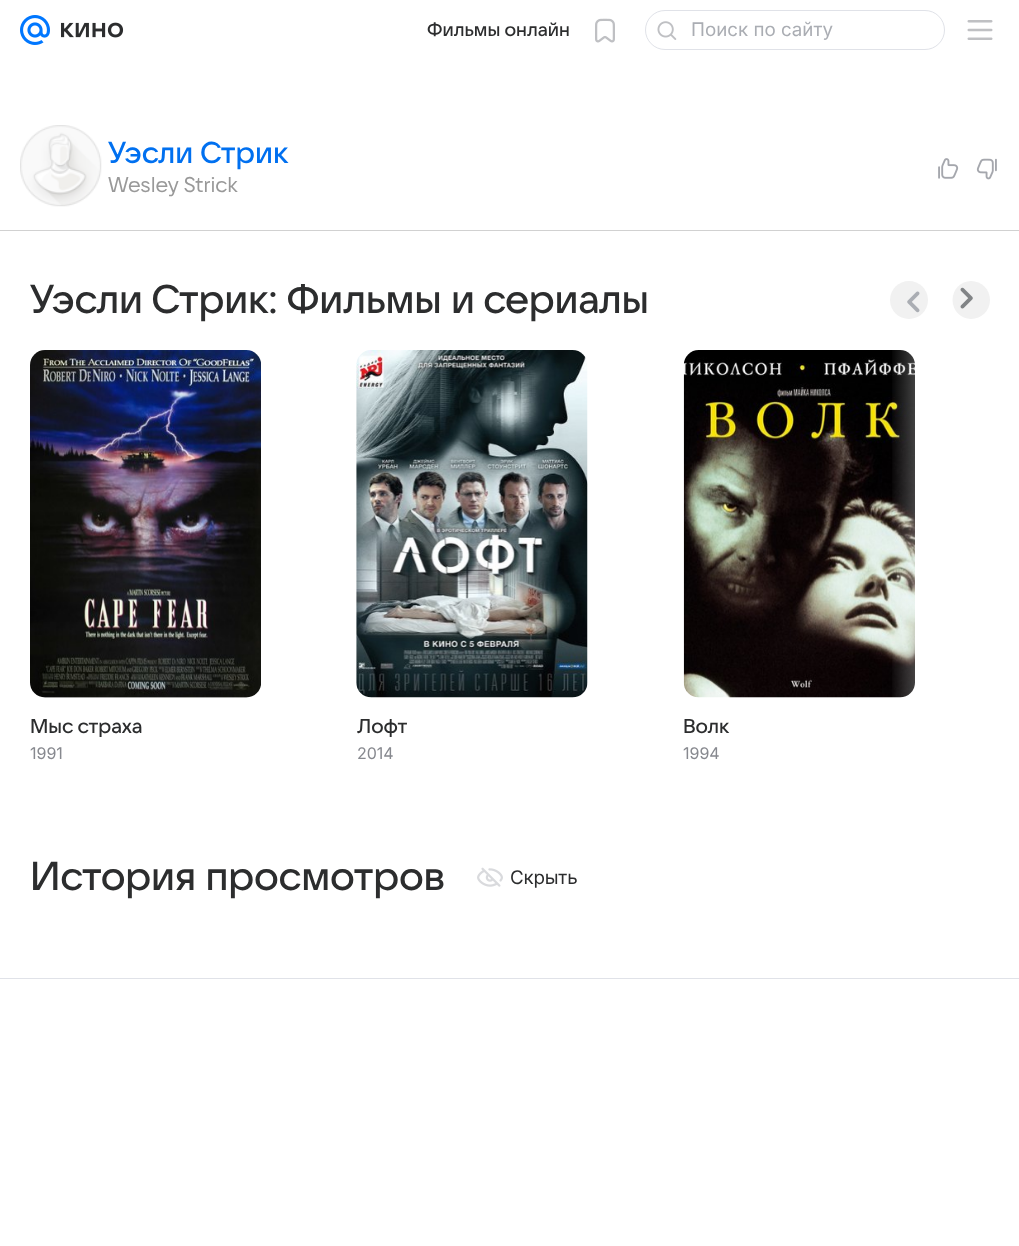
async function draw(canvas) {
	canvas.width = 1019;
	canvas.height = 1246;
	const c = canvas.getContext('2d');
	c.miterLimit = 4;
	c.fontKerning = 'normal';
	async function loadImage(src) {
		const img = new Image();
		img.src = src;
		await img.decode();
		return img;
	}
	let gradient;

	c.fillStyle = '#fff';
	c.fillRect(0, 0, 1019, 1246);
	c.drawImage(await loadImage('img1.png'), 20, 15, 30, 30);
	c.drawImage(await loadImage('img2.png'), 61, 22, 63, 16);
	c.font = '500 18.75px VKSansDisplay';
	c.fillStyle = '#2c2d2e';
	c.fillText('Фильмы онлайн', 427, 36);
	c.drawImage(await loadImage('img3.png'), 595, 18, 20, 25);
	c.beginPath();
	c.roundRect(645.5, 10.5, 299, 39, 19.5);
	c.strokeStyle = '#e0e2e8';
	c.stroke();
	c.drawImage(await loadImage('img4.png'), 657, 21, 20, 19);
	c.font = '18.75px Inter';
	c.fillStyle = '#aaadb3';
	c.fillText('Поиск по сайту', 691, 36);
	c.drawImage(await loadImage('img5.png'), 967, 20, 26, 20);
	c.fillStyle = '#d1d1d1';
	c.fillRect(0, 230, 1019, 1);
	c.drawImage(await loadImage('img6.png'), 20, 125, 82, 82);
	c.font = '500 30px VKSansDisplay';
	c.fillStyle = '#0070f0';
	c.fillText('Уэсли Стрик', 108, 163);
	c.font = '21.25px VKSansDisplay';
	c.fillStyle = '#999';
	c.fillText('Wesley Strick', 108, 192);
	c.drawImage(await loadImage('img7.png'), 938, 158, 21, 21);
	c.drawImage(await loadImage('img8.png'), 976, 158, 21, 22);
	c.letterSpacing = '-0.2px';
	c.font = '500 40px VKSansDisplay';
	c.fillStyle = '#2c2d2e';
	c.fillText('Уэсли Стрик: Фильмы и сериалы', 30, 313);
	c.fillStyle = '#f1f1f1';
	c.beginPath();
	c.arc(909, 300, 19, 0, 2 * Math.PI);
	c.fill();
	c.drawImage(await loadImage('img9.png'), 907, 291, 13, 22);
	c.beginPath();
	c.moveTo(971, 319);
	c.bezierCurveTo(961, 319, 952.5, 310.5, 952.5, 300);
	c.bezierCurveTo(952.5, 289.5, 961, 281, 971, 281);
	c.bezierCurveTo(981.5, 281, 990, 289.5, 990, 300);
	c.bezierCurveTo(990, 310.5, 981.5, 319, 971, 319);
	c.closePath();
	c.fill();
	c.drawImage(await loadImage('img10.png'), 960, 287, 13, 22);
	c.drawImage(await loadImage('img13.png'), 683, 350, 232, 348);
	gradient = c.createLinearGradient(890, 570, 990, 570);
	gradient.addColorStop(0, '#ffffff00');
	gradient.addColorStop(1, '#fff');
	c.fillStyle = gradient;
	c.fillRect(892, 350, 23, 348);
	c.drawImage(await loadImage('img11.png'), 30, 350, 231, 348);
	c.letterSpacing = '0px';
	c.font = '500 20px VKSansDisplay';
	c.fillStyle = '#2c2d2e';
	c.fillText('Мыс страха', 30, 733);
	c.font = '16px Inter';
	c.fillStyle = '#87898f';
	c.fillText('1991', 30, 759);
	c.drawImage(await loadImage('img12.png'), 356, 350, 232, 348);
	c.font = '500 20px VKSansDisplay';
	c.fillStyle = '#2c2d2e';
	c.fillText('Лофт', 357, 733);
	c.font = '16px Inter';
	c.fillStyle = '#87898f';
	c.fillText('2014', 357, 759);
	c.font = '500 20px VKSansDisplay';
	c.fillStyle = '#2c2d2e';
	c.fillText('Волк', 683, 733);
	c.font = '16px Inter';
	c.fillStyle = '#87898f';
	c.fillText('1994', 683, 759);
	c.letterSpacing = '-0.2px';
	c.font = '500 40px VKSansDisplay';
	c.fillStyle = '#2c2d2e';
	c.fillText('История просмотров', 30, 890);
	c.drawImage(await loadImage('img14.png'), 477, 867, 26, 20);
	c.font = '18.75px Inter';
	c.fillText('Скрыть', 510, 884);
	c.fillStyle = '#e0e2e8';
	c.fillRect(0, 978, 1019, 1);
}

draw(document.querySelector('canvas'));
